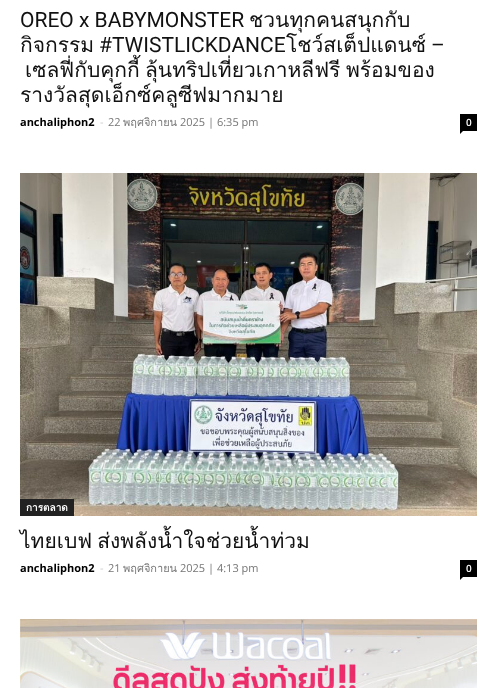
async function draw(canvas) {
	canvas.width = 497;
	canvas.height = 688;
	const c = canvas.getContext('2d');
	c.miterLimit = 4;
	c.fontKerning = 'normal';
	async function loadImage(src) {
		const img = new Image();
		img.src = src;
		await img.decode();
		return img;
	}

	c.fillStyle = '#fff';
	c.fillRect(0, 0, 497, 688);
	c.font = '21px Roboto';
	c.fillStyle = '#111';
	c.fillText('OREO x BABYMONSTER', 20, 27);
	c.font = '21px Loma';
	c.fillText('ชวนทุกคนสนุกกับ', 249, 27);
	c.fillText('กิจกรรม', 20, 52);
	c.font = '21px Roboto';
	c.fillText('#TWISTLICKDANCE', 99, 52);
	c.font = '21px Loma';
	c.fillText('โชว์สเต็ปแดนซ์', 286, 52);
	c.font = '21px Roboto';
	c.fillText('–', 431, 52);
	c.font = '21px Loma';
	for (const [text, x, y] of [
		['เซลฟี่กับคุกกี้', 25, 77],
		['ลุ้นทริปเที่ยวเกาหลีฟรี', 145, 77],
		['พร้อมของ', 346, 77],
		['รางวัลสุดเอ็กซ์คลูซีฟมากมาย', 20, 102],
	]) {
		c.fillText(text, x, y);
	}
	c.font = 'bold 11px Open Sans';
	c.fillStyle = '#000';
	c.fillText('anchaliphon2', 20, 126);
	c.font = '11px Open Sans';
	c.fillStyle = '#ccc';
	c.fillText('-', 100, 126);
	c.fillStyle = '#767676';
	c.fillText('22', 108, 126);
	c.font = '11px Loma';
	c.fillText('พฤศจิกายน', 123, 126);
	c.font = '11px Open Sans';
	c.fillText('2025 | 6:35 pm', 180, 126);
	c.fillStyle = '#000';
	c.fillRect(460, 114, 17, 17);
	c.font = '600 10px Open Sans';
	c.fillStyle = '#fff';
	c.fillText('0', 466, 126);
	c.fillStyle = '#000';
	c.beginPath();
	c.moveTo(460, 131);
	c.lineTo(463, 131);
	c.lineTo(460, 134);
	c.closePath();
	c.fill();
	c.drawImage(await loadImage('img1.png'), 20, 173, 457, 343);
	c.fillStyle = '#222';
	c.fillRect(20, 499, 54, 17);
	c.font = 'bold 10px Loma';
	c.fillStyle = '#fff';
	c.fillText('การตลาด', 26, 511);
	c.wordSpacing = '-2px';
	c.font = '21px Loma';
	c.fillStyle = '#111';
	c.fillText('ไทยเบฟ ส่งพลังน้ำใจช่วยน้ำท่วม', 20, 548);
	c.wordSpacing = '0px';
	c.font = 'bold 11px Open Sans';
	c.fillStyle = '#000';
	c.fillText('anchaliphon2', 20, 572);
	c.font = '11px Open Sans';
	c.fillStyle = '#ccc';
	c.fillText('-', 100, 572);
	c.fillStyle = '#767676';
	c.fillText('21', 108, 572);
	c.font = '11px Loma';
	c.fillText('พฤศจิกายน', 123, 572);
	c.font = '11px Open Sans';
	c.fillText('2025 | 4:13 pm', 180, 572);
	c.fillStyle = '#000';
	c.fillRect(460, 560, 17, 17);
	c.font = '600 10px Open Sans';
	c.fillStyle = '#fff';
	c.fillText('0', 466, 572);
	c.fillStyle = '#000';
	c.beginPath();
	c.moveTo(460, 577);
	c.lineTo(463, 577);
	c.lineTo(460, 580);
	c.closePath();
	c.fill();
	c.drawImage(await loadImage('img2.png'), 20, 619, 457, 69);
}

draw(document.querySelector('canvas'));
